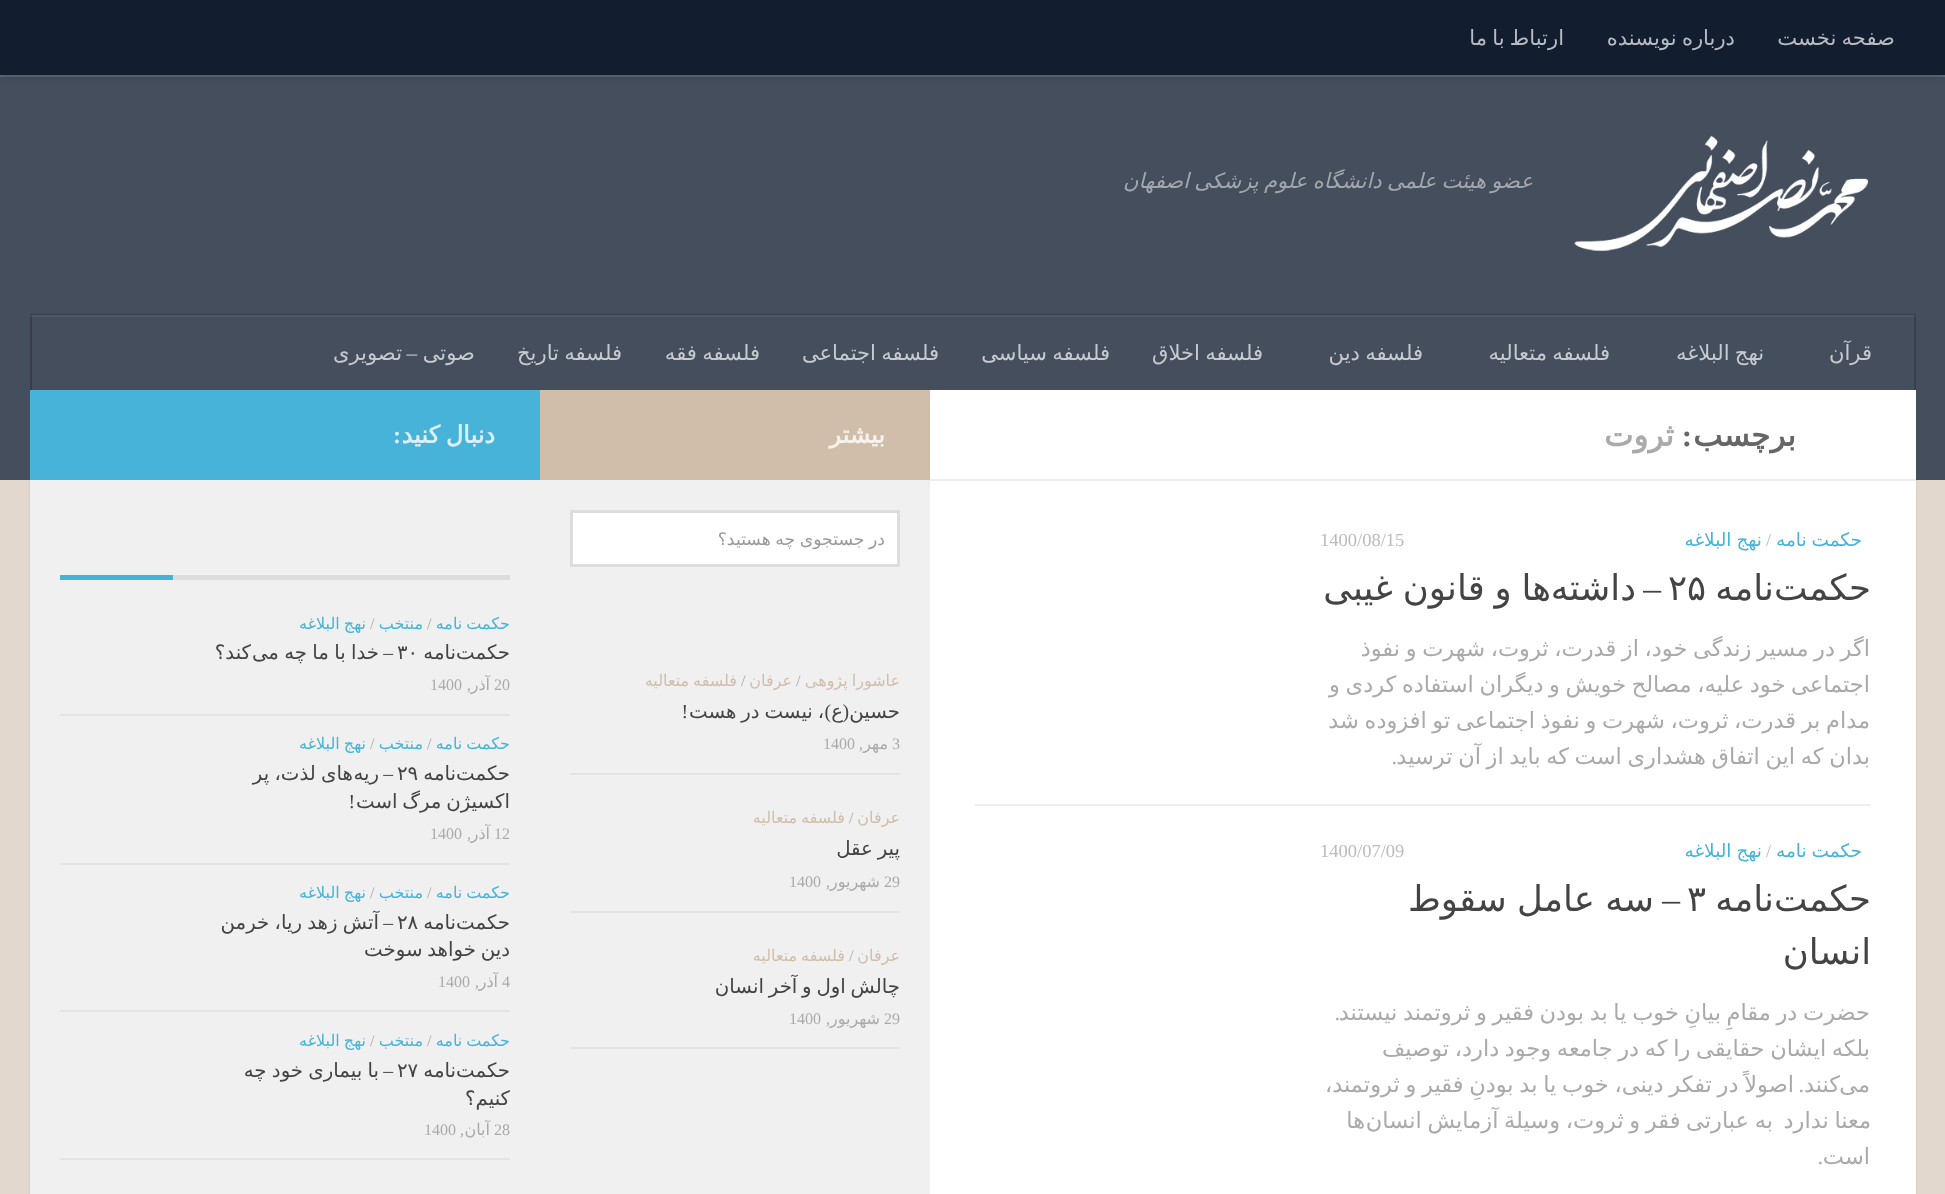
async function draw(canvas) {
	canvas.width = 1945;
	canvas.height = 1194;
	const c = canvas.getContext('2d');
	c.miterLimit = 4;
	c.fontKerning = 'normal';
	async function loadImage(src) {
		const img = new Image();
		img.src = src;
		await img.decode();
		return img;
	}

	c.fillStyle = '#e3d8cd';
	c.fillRect(0, 0, 1945, 1194);
	c.fillStyle = '#0000001a';
	c.filter = 'blur(1px)';
	c.beginPath();
	c.rect(30, 392, 1886, 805);
	c.fill();
	c.filter = 'none';
	c.fillStyle = '#454e5c';
	c.fillRect(0, 77, 1945, 403);
	c.fillStyle = '#4e5764';
	c.fillRect(30, 315, 1886, 2);
	c.fillStyle = '#616974';
	c.beginPath();
	c.moveTo(0, 75);
	c.lineTo(0, 77);
	c.lineTo(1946, 77);
	c.lineTo(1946, 2);
	c.lineTo(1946, 75);
	c.closePath();
	c.fill();
	c.fillStyle = '#00000033';
	c.filter = 'blur(4px)';
	c.beginPath();
	c.rect(0, 0, 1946, 75);
	c.fill();
	c.filter = 'none';
	c.fillStyle = '#121d30';
	c.fillRect(0, 0, 1945, 75);
	c.wordSpacing = '-1.5px';
	c.direction = 'rtl';
	c.font = '21.1px DejaVu Sans';
	c.fillStyle = '#b8bbc1';
	for (const [text, x, y] of [
		['صفحه نخست', 1895, 45],
		['درباره نويسنده', 1735, 45],
		['ارتباط با ما', 1564, 45],
	]) {
		c.fillText(text, x, y);
	}
	c.drawImage(await loadImage('img1.png'), 1574, 135, 295, 116);
	c.font = 'italic 21.1px DejaVu Sans';
	c.fillStyle = '#a2a7ae';
	c.fillText('عضو هیئت علمی دانشگاه علوم پزشکی اصفهان', 1533, 188);
	c.fillStyle = '#373e4a';
	c.beginPath();
	c.moveTo(30, 314);
	c.lineTo(30, 315);
	c.lineTo(1916, 315);
	c.lineTo(1916, 389);
	c.lineTo(1916, 314);
	c.closePath();
	c.fill();
	for (const [x, y, w, h, color] of [
		[1914, 315, 2, 75, '#373e4a'],
		[1914, 315, 2, 2, '#414853'],
		[30, 315, 2, 75, '#373e4a'],
		[30, 315, 2, 2, '#414853'],
	]) {
		c.fillStyle = color;
		c.fillRect(x, y, w, h);
	}
	c.wordSpacing = '0px';
	c.font = '21.1px DejaVu Sans';
	c.fillStyle = '#c7cace';
	c.fillText('قرآن', 1872, 360);
	c.wordSpacing = '-1.5px';
	for (const [text, x, y] of [
		['نهج البلاغه', 1764, 360],
		['فلسفه متعالیه', 1610, 360],
		['فلسفه دین', 1423, 360],
		['فلسفه اخلاق', 1263, 360],
		['فلسفه سیاسی', 1110, 360],
		['فلسفه اجتماعی', 939, 360],
		['فلسفه فقه', 760, 360],
		['فلسفه تاریخ', 622, 360],
	]) {
		c.fillText(text, x, y);
	}
	c.wordSpacing = '0px';
	c.fillText('صوتی', 475, 360);
	c.font = '21.1px Liberation Serif';
	c.fillText('–', 417, 360);
	c.font = '21.1px DejaVu Sans';
	c.fillText('تصویری', 402, 360);
	c.fillStyle = '#fff';
	c.fillRect(930, 390, 986, 804);
	c.fillStyle = '#eee';
	c.fillRect(930, 479, 986, 2);
	c.font = 'bold 31px DejaVu Sans';
	c.fillStyle = '#666';
	c.fillText('برچسب', 1796, 446);
	c.font = 'bold 31px Liberation Serif';
	c.fillText(':', 1692, 446);
	c.font = 'bold 31px DejaVu Sans';
	c.fillStyle = '#aaa';
	c.fillText('ثروت', 1674, 446);
	c.fillStyle = '#eee';
	c.fillRect(975, 804, 896, 2);
	c.wordSpacing = '-1px';
	c.font = '18.5px DejaVu Sans';
	c.fillStyle = '#47b3d9';
	c.fillText('حکمت نامه', 1862, 546);
	c.wordSpacing = '0px';
	c.direction = 'ltr';
	c.font = '18.5px Liberation Serif';
	c.fillStyle = '#bbb';
	c.fillText('/', 1766, 546);
	c.wordSpacing = '-1px';
	c.direction = 'rtl';
	c.font = '18.5px DejaVu Sans';
	c.fillStyle = '#47b3d9';
	c.fillText('نهج البلاغه', 1762, 546);
	c.wordSpacing = '0px';
	c.direction = 'ltr';
	c.font = '18.5px Liberation Serif';
	c.fillStyle = '#bbb';
	c.fillText('1400/08/15', 1320, 546);
	c.direction = 'rtl';
	c.font = '35.5px DejaVu Sans';
	c.fillStyle = '#444';
	c.fillText('حکمت', 1871, 600);
	c.fillText('نامه', 1774, 600);
	c.direction = 'ltr';
	c.fillText('۲۵', 1668, 600);
	c.direction = 'rtl';
	c.font = '35.5px Liberation Serif';
	c.fillText('–', 1661, 600);
	c.wordSpacing = '-1.5px';
	c.font = '35.5px DejaVu Sans';
	c.fillText('ها و قانون غیبی', 1551, 600);
	c.wordSpacing = '0px';
	c.fillText('داشته', 1636, 600);
	c.wordSpacing = '-1.5px';
	c.font = '22.5px DejaVu Sans';
	c.fillStyle = '#aaa';
	for (const [text, x, y] of [
		['اگر در مسیر زندگی خود، از قدرت، ثروت، شهرت و نفوذ', 1870, 656],
		['اجتماعی خود علیه، مصالح خویش و دیگران استفاده کردی و', 1870, 692],
		['مدام بر قدرت، ثروت، شهرت و نفوذ اجتماعی تو افزوده شد', 1870, 728],
		['بدان که این اتفاق هشداری است که باید از آن ترسید', 1870, 764],
	]) {
		c.fillText(text, x, y);
	}
	c.wordSpacing = '0px';
	c.font = '22.5px Liberation Serif';
	c.fillText('.', 1397, 764);
	c.wordSpacing = '-1px';
	c.font = '18.5px DejaVu Sans';
	c.fillStyle = '#47b3d9';
	c.fillText('حکمت نامه', 1862, 857);
	c.wordSpacing = '0px';
	c.direction = 'ltr';
	c.font = '18.5px Liberation Serif';
	c.fillStyle = '#bbb';
	c.fillText('/', 1766, 857);
	c.wordSpacing = '-1px';
	c.direction = 'rtl';
	c.font = '18.5px DejaVu Sans';
	c.fillStyle = '#47b3d9';
	c.fillText('نهج البلاغه', 1762, 857);
	c.wordSpacing = '0px';
	c.direction = 'ltr';
	c.font = '18.5px Liberation Serif';
	c.fillStyle = '#bbb';
	c.fillText('1400/07/09', 1320, 857);
	c.direction = 'rtl';
	c.font = '35.5px DejaVu Sans';
	c.fillStyle = '#444';
	c.fillText('حکمت', 1871, 911);
	c.fillText('نامه', 1774, 911);
	c.direction = 'ltr';
	c.fillText('۳', 1687, 911);
	c.direction = 'rtl';
	c.font = '35.5px Liberation Serif';
	c.fillText('–', 1680, 911);
	c.wordSpacing = '-1px';
	c.font = '35.5px DejaVu Sans';
	c.fillText('سه عامل سقوط', 1654, 911);
	c.wordSpacing = '0px';
	c.fillText('انسان', 1871, 964);
	c.wordSpacing = '-1.5px';
	c.font = '22.5px DejaVu Sans';
	c.fillStyle = '#aaa';
	c.fillText('حضرت در مقامِ بیانِ خوب یا بد بودن فقیر و ثروتمند نیستند', 1870, 1020);
	c.wordSpacing = '0px';
	c.font = '22.5px Liberation Serif';
	c.fillText('.', 1340, 1020);
	c.wordSpacing = '-1.5px';
	c.font = '22.5px DejaVu Sans';
	c.fillText('بلکه ایشان حقایقی را که در جامعه وجود دارد، توصیف', 1870, 1056);
	c.wordSpacing = '0px';
	c.fillText('می', 1870, 1092);
	c.fillText('کنند', 1840, 1092);
	c.wordSpacing = '-1.4px';
	c.fillText('اصولاً در تفکر دینی، خوب یا بد بودنِ فقیر و ثروتمند،', 1794, 1092);
	c.wordSpacing = '0px';
	c.font = '22.5px Liberation Serif';
	c.fillText('.', 1804, 1092);
	c.wordSpacing = '-1.5px';
	c.font = '22.5px DejaVu Sans';
	c.fillText('معنا ندارد', 1871, 1128);
	c.fillText('به عبارتی فقر و ثروت، وسیلة آزمایش انسان', 1773, 1128);
	c.wordSpacing = '0px';
	c.fillText('ها', 1365, 1128);
	c.fillText('است', 1870, 1164);
	c.font = '22.5px Liberation Serif';
	c.fillText('.', 1823, 1164);
	c.fillStyle = '#d0beaa';
	c.fillRect(540, 390, 390, 90);
	c.font = 'bold 24px DejaVu Sans';
	c.fillStyle = '#f6f2ee';
	c.fillText('بیشتر', 885, 443);
	c.fillStyle = '#f0f0f0';
	c.fillRect(30, 480, 900, 714);
	c.fillStyle = '#fff';
	c.beginPath();
	c.rect(571.5, 511.5, 327, 54);
	c.fill();
	c.strokeStyle = '#ddd';
	c.lineWidth = 3;
	c.stroke();
	c.save();
	c.beginPath();
	c.rect(612, 524, 273, 30);
	c.clip();
	c.wordSpacing = '-1px';
	c.font = '17.25px DejaVu Sans';
	c.fillStyle = '#999';
	c.fillText('در جستجوی چه هستید؟', 885, 545);
	c.restore();
	c.fillStyle = '#e4e4e4';
	c.fillRect(570, 773, 330, 2);
	c.wordSpacing = '-1px';
	c.font = '16px DejaVu Sans';
	c.fillStyle = '#d0beaa';
	c.fillText('عاشورا پژوهی', 900, 686);
	c.wordSpacing = '0px';
	c.direction = 'ltr';
	c.font = '16px Liberation Serif';
	c.fillStyle = '#aaa';
	c.fillText('/', 796, 686);
	c.direction = 'rtl';
	c.font = '16px DejaVu Sans';
	c.fillStyle = '#d0beaa';
	c.fillText('عرفان', 792, 686);
	c.direction = 'ltr';
	c.font = '16px Liberation Serif';
	c.fillStyle = '#aaa';
	c.fillText('/', 741, 686);
	c.wordSpacing = '-1px';
	c.direction = 'rtl';
	c.font = '16px DejaVu Sans';
	c.fillStyle = '#d0beaa';
	c.fillText('فلسفه متعالیه', 737, 686);
	c.wordSpacing = '0px';
	c.font = '19.75px Liberation Serif';
	c.fillStyle = '#444';
	c.fillText('(', 849, 718);
	c.font = '19.75px DejaVu Sans';
	c.fillText('ع', 843, 718);
	c.wordSpacing = '-1.5px';
	c.fillText('، نیست در هست', 824, 718);
	c.wordSpacing = '0px';
	c.font = '19.75px Liberation Serif';
	c.fillText(')', 831, 718);
	c.fillText('!', 688, 718);
	c.font = '19.75px DejaVu Sans';
	c.fillText('حسین', 900, 718);
	c.direction = 'ltr';
	c.font = '16px Liberation Serif';
	c.fillStyle = '#aaa';
	c.fillText('3', 892, 749);
	c.direction = 'rtl';
	c.fillText(',', 863, 749);
	c.font = '16px DejaVu Sans';
	c.fillText('مهر', 888, 749);
	c.direction = 'ltr';
	c.font = '16px Liberation Serif';
	c.fillText('1400', 823, 749);
	c.fillStyle = '#e4e4e4';
	c.fillRect(570, 911, 330, 2);
	c.direction = 'rtl';
	c.font = '16px DejaVu Sans';
	c.fillStyle = '#d0beaa';
	c.fillText('عرفان', 900, 823);
	c.direction = 'ltr';
	c.font = '16px Liberation Serif';
	c.fillStyle = '#aaa';
	c.fillText('/', 849, 823);
	c.wordSpacing = '-1px';
	c.direction = 'rtl';
	c.font = '16px DejaVu Sans';
	c.fillStyle = '#d0beaa';
	c.fillText('فلسفه متعالیه', 845, 823);
	c.wordSpacing = '-1.5px';
	c.font = '19.75px DejaVu Sans';
	c.fillStyle = '#444';
	c.fillText('پیر عقل', 900, 855);
	c.wordSpacing = '0px';
	c.direction = 'ltr';
	c.font = '16px Liberation Serif';
	c.fillStyle = '#aaa';
	c.fillText('29', 884, 887);
	c.direction = 'rtl';
	c.fillText(',', 830, 887);
	c.font = '16px DejaVu Sans';
	c.fillText('شهریور', 880, 887);
	c.direction = 'ltr';
	c.font = '16px Liberation Serif';
	c.fillText('1400', 789, 887);
	c.fillStyle = '#e4e4e4';
	c.fillRect(570, 1047, 330, 2);
	c.direction = 'rtl';
	c.font = '16px DejaVu Sans';
	c.fillStyle = '#d0beaa';
	c.fillText('عرفان', 900, 961);
	c.direction = 'ltr';
	c.font = '16px Liberation Serif';
	c.fillStyle = '#aaa';
	c.fillText('/', 849, 961);
	c.wordSpacing = '-1px';
	c.direction = 'rtl';
	c.font = '16px DejaVu Sans';
	c.fillStyle = '#d0beaa';
	c.fillText('فلسفه متعالیه', 845, 961);
	c.save();
	c.beginPath();
	c.rect(570, 912, 330, 135);
	c.clip();
	c.wordSpacing = '-1.5px';
	c.font = '19.75px DejaVu Sans';
	c.fillStyle = '#444';
	c.fillText('چالش اول و آخر انسان', 900, 993);
	c.restore();
	c.wordSpacing = '0px';
	c.direction = 'ltr';
	c.font = '16px Liberation Serif';
	c.fillStyle = '#aaa';
	c.fillText('29', 884, 1024);
	c.direction = 'rtl';
	c.fillText(',', 830, 1024);
	c.font = '16px DejaVu Sans';
	c.fillText('شهریور', 880, 1024);
	c.direction = 'ltr';
	c.font = '16px Liberation Serif';
	c.fillText('1400', 789, 1024);
	c.fillStyle = '#47b3d9';
	c.fillRect(30, 390, 510, 90);
	c.wordSpacing = '-2px';
	c.direction = 'rtl';
	c.font = 'bold 24px DejaVu Sans';
	c.fillStyle = '#daf0f7';
	c.fillText('دنبال کنید', 495, 443);
	c.wordSpacing = '0px';
	c.font = 'bold 24px Liberation Serif';
	c.fillText(':', 401, 443);
	for (const [x, y, w, h, color] of [
		[173, 575, 337, 5, '#ddd'],
		[60, 575, 113, 5, '#47b3d9'],
		[60, 714, 450, 2, '#e4e4e4'],
	]) {
		c.fillStyle = color;
		c.fillRect(x, y, w, h);
	}
	c.wordSpacing = '-1px';
	c.font = '16px DejaVu Sans';
	c.fillStyle = '#47b3d9';
	c.fillText('حکمت نامه', 510, 629);
	c.wordSpacing = '0px';
	c.direction = 'ltr';
	c.font = '16px Liberation Serif';
	c.fillStyle = '#aaa';
	c.fillText('/', 427, 629);
	c.direction = 'rtl';
	c.font = '16px DejaVu Sans';
	c.fillStyle = '#47b3d9';
	c.fillText('منتخب', 423, 629);
	c.direction = 'ltr';
	c.font = '16px Liberation Serif';
	c.fillStyle = '#aaa';
	c.fillText('/', 370, 629);
	c.wordSpacing = '-1px';
	c.direction = 'rtl';
	c.font = '16px DejaVu Sans';
	c.fillStyle = '#47b3d9';
	c.fillText('نهج البلاغه', 366, 629);
	c.wordSpacing = '0px';
	c.font = '19.75px DejaVu Sans';
	c.fillStyle = '#444';
	c.fillText('حکمت', 510, 659);
	c.fillText('نامه', 456, 659);
	c.direction = 'ltr';
	c.fillText('۳۰', 397, 659);
	c.direction = 'rtl';
	c.font = '19.75px Liberation Serif';
	c.fillText('–', 393, 659);
	c.wordSpacing = '-1px';
	c.font = '19.75px DejaVu Sans';
	c.fillText('خدا با ما چه می', 379, 659);
	c.wordSpacing = '0px';
	c.fillText('کند؟', 251, 659);
	c.direction = 'ltr';
	c.font = '16px Liberation Serif';
	c.fillStyle = '#aaa';
	c.fillText('20', 494, 690);
	c.direction = 'rtl';
	c.fillText(',', 471, 690);
	c.font = '16px DejaVu Sans';
	c.fillText('آذر', 490, 690);
	c.direction = 'ltr';
	c.font = '16px Liberation Serif';
	c.fillText('1400', 430, 690);
	c.fillStyle = '#e4e4e4';
	c.fillRect(60, 863, 450, 2);
	c.wordSpacing = '-1px';
	c.direction = 'rtl';
	c.font = '16px DejaVu Sans';
	c.fillStyle = '#47b3d9';
	c.fillText('حکمت نامه', 510, 749);
	c.wordSpacing = '0px';
	c.direction = 'ltr';
	c.font = '16px Liberation Serif';
	c.fillStyle = '#aaa';
	c.fillText('/', 427, 749);
	c.direction = 'rtl';
	c.font = '16px DejaVu Sans';
	c.fillStyle = '#47b3d9';
	c.fillText('منتخب', 423, 749);
	c.direction = 'ltr';
	c.font = '16px Liberation Serif';
	c.fillStyle = '#aaa';
	c.fillText('/', 370, 749);
	c.wordSpacing = '-1px';
	c.direction = 'rtl';
	c.font = '16px DejaVu Sans';
	c.fillStyle = '#47b3d9';
	c.fillText('نهج البلاغه', 366, 749);
	c.wordSpacing = '0px';
	c.font = '19.75px DejaVu Sans';
	c.fillStyle = '#444';
	c.fillText('حکمت', 510, 780);
	c.fillText('نامه', 456, 780);
	c.direction = 'ltr';
	c.fillText('۲۹', 397, 780);
	c.direction = 'rtl';
	c.font = '19.75px Liberation Serif';
	c.fillText('–', 393, 780);
	c.font = '19.75px DejaVu Sans';
	c.fillText('ریه', 379, 780);
	c.wordSpacing = '-1px';
	c.fillText('های لذت، پر', 353, 780);
	c.save();
	c.beginPath();
	c.rect(60, 716, 450, 147);
	c.clip();
	c.wordSpacing = '-1.5px';
	c.fillText('اکسیژن مرگ است', 510, 808);
	c.restore();
	c.wordSpacing = '0px';
	c.font = '19.75px Liberation Serif';
	c.fillText('!', 355, 808);
	c.direction = 'ltr';
	c.font = '16px Liberation Serif';
	c.fillStyle = '#aaa';
	c.fillText('12', 494, 839);
	c.direction = 'rtl';
	c.fillText(',', 471, 839);
	c.font = '16px DejaVu Sans';
	c.fillText('آذر', 490, 839);
	c.direction = 'ltr';
	c.font = '16px Liberation Serif';
	c.fillText('1400', 430, 839);
	c.fillStyle = '#e4e4e4';
	c.fillRect(60, 1010, 450, 2);
	c.wordSpacing = '-1px';
	c.direction = 'rtl';
	c.font = '16px DejaVu Sans';
	c.fillStyle = '#47b3d9';
	c.fillText('حکمت نامه', 510, 898);
	c.wordSpacing = '0px';
	c.direction = 'ltr';
	c.font = '16px Liberation Serif';
	c.fillStyle = '#aaa';
	c.fillText('/', 427, 898);
	c.direction = 'rtl';
	c.font = '16px DejaVu Sans';
	c.fillStyle = '#47b3d9';
	c.fillText('منتخب', 423, 898);
	c.direction = 'ltr';
	c.font = '16px Liberation Serif';
	c.fillStyle = '#aaa';
	c.fillText('/', 370, 898);
	c.wordSpacing = '-1px';
	c.direction = 'rtl';
	c.font = '16px DejaVu Sans';
	c.fillStyle = '#47b3d9';
	c.fillText('نهج البلاغه', 366, 898);
	c.wordSpacing = '0px';
	c.font = '19.75px DejaVu Sans';
	c.fillStyle = '#444';
	c.fillText('حکمت', 510, 929);
	c.fillText('نامه', 456, 929);
	c.direction = 'ltr';
	c.fillText('۲۸', 397, 929);
	c.wordSpacing = '-1px';
	c.direction = 'rtl';
	c.fillText('آتش زهد ریا، خرمن', 379, 929);
	c.wordSpacing = '0px';
	c.font = '19.75px Liberation Serif';
	c.fillText('–', 393, 929);
	c.save();
	c.beginPath();
	c.rect(60, 864, 450, 146);
	c.clip();
	c.wordSpacing = '-1.5px';
	c.font = '19.75px DejaVu Sans';
	c.fillText('دین خواهد سوخت', 510, 956);
	c.restore();
	c.direction = 'ltr';
	c.font = '16px Liberation Serif';
	c.fillStyle = '#aaa';
	c.fillText('4', 502, 987);
	c.direction = 'rtl';
	c.fillText(',', 479, 987);
	c.font = '16px DejaVu Sans';
	c.fillText('آذر', 498, 987);
	c.direction = 'ltr';
	c.font = '16px Liberation Serif';
	c.fillText('1400', 438, 987);
	c.fillStyle = '#e4e4e4';
	c.fillRect(60, 1158, 450, 2);
	c.wordSpacing = '-1px';
	c.direction = 'rtl';
	c.font = '16px DejaVu Sans';
	c.fillStyle = '#47b3d9';
	c.fillText('حکمت نامه', 510, 1046);
	c.wordSpacing = '0px';
	c.direction = 'ltr';
	c.font = '16px Liberation Serif';
	c.fillStyle = '#aaa';
	c.fillText('/', 427, 1046);
	c.direction = 'rtl';
	c.font = '16px DejaVu Sans';
	c.fillStyle = '#47b3d9';
	c.fillText('منتخب', 423, 1046);
	c.direction = 'ltr';
	c.font = '16px Liberation Serif';
	c.fillStyle = '#aaa';
	c.fillText('/', 370, 1046);
	c.wordSpacing = '-1px';
	c.direction = 'rtl';
	c.font = '16px DejaVu Sans';
	c.fillStyle = '#47b3d9';
	c.fillText('نهج البلاغه', 366, 1046);
	c.wordSpacing = '0px';
	c.font = '19.75px DejaVu Sans';
	c.fillStyle = '#444';
	c.fillText('حکمت', 510, 1077);
	c.fillText('نامه', 456, 1077);
	c.direction = 'ltr';
	c.fillText('۲۷', 397, 1077);
	c.direction = 'rtl';
	c.font = '19.75px Liberation Serif';
	c.fillText('–', 393, 1077);
	c.wordSpacing = '-1px';
	c.font = '19.75px DejaVu Sans';
	c.fillText('با بیماری خود چه', 379, 1077);
	c.wordSpacing = '0px';
	c.fillText('کنیم؟', 510, 1105);
	c.direction = 'ltr';
	c.font = '16px Liberation Serif';
	c.fillStyle = '#aaa';
	c.fillText('28', 494, 1135);
	c.direction = 'rtl';
	c.font = '16px DejaVu Sans';
	c.fillText('آبان', 490, 1135);
	c.font = '16px Liberation Serif';
	c.fillText(',', 464, 1135);
	c.direction = 'ltr';
	c.fillText('1400', 424, 1135);
}

draw(document.querySelector('canvas'));
